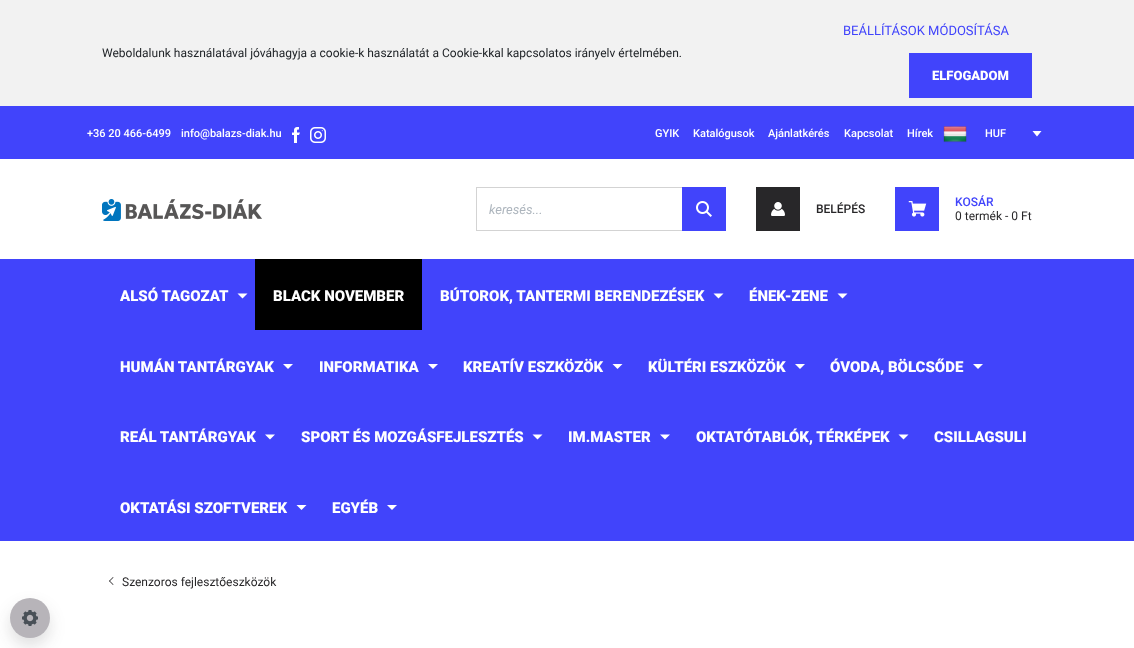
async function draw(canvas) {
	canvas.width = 1134;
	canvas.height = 648;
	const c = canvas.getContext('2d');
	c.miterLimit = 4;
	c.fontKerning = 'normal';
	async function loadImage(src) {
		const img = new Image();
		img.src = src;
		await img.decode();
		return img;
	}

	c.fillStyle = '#fff';
	c.fillRect(0, 0, 1134, 648);
	c.fillStyle = '#f2f2f2';
	c.fillRect(0, 0, 1134, 106);
	c.font = '12px Roboto';
	c.fillStyle = '#212529';
	c.fillText('Weboldalunk használatával jóváhagyja a cookie-k használatát a Cookie-kkal kapcsolatos irányelv értelmében.', 102, 57);
	c.font = '13px Roboto';
	c.fillStyle = '#4144fb';
	c.fillText('BEÁLLÍTÁSOK MÓDOSÍTÁSA', 843, 35);
	c.fillRect(909, 53, 123, 45);
	c.font = '900 13px Roboto';
	c.fillStyle = '#fff';
	c.fillText('ELFOGADOM', 932, 80);
	c.fillStyle = '#4144fb';
	c.fillRect(0, 106, 1134, 53);
	c.font = '500 11px Roboto';
	c.fillStyle = '#fff';
	c.fillText('+36 20 466-6499', 87, 137);
	c.fillText('info@balazs-diak.hu', 181, 137);
	c.drawImage(await loadImage('img1.png'), 292, 127, 8, 16);
	c.drawImage(await loadImage('img2.png'), 310, 127, 16, 16);
	for (const [text, x, y] of [
		['GYIK', 655, 137],
		['Katalógusok', 693, 137],
		['Ajánlatkérés', 768, 137],
		['Kapcsolat', 844, 137],
		['Hírek', 907, 137],
	]) {
		c.fillText(text, x, y);
	}
	c.drawImage(await loadImage('img3.png'), 943, 126, 24, 17);
	c.beginPath();
	c.moveTo(1032.5, 131);
	c.lineTo(1037, 136.5);
	c.lineTo(1041.5, 131);
	c.closePath();
	c.fill();
	c.fillText('HUF', 985, 137);
	c.drawImage(await loadImage('img4.png'), 102, 199, 160, 22);
	c.strokeStyle = '#d3d3d3';
	c.strokeRect(476.5, 187.5, 249, 43);
	c.font = 'italic 13px Roboto';
	c.fillStyle = '#adb5bd';
	c.fillText('keresés...', 489, 214);
	c.fillStyle = '#4144fb';
	c.fillRect(682, 187, 44, 44);
	c.drawImage(await loadImage('img5.png'), 696, 201, 16, 16);
	c.fillStyle = '#282729';
	c.fillRect(756, 187, 44, 44);
	c.drawImage(await loadImage('img6.png'), 771, 202, 14, 14);
	c.font = '500 12px Roboto';
	c.fillText('BELÉPÉS', 816, 213);
	c.fillStyle = '#4144fb';
	c.fillRect(895, 187, 44, 44);
	c.drawImage(await loadImage('img7.png'), 908, 201, 19, 16);
	c.fillText('KOSÁR', 955, 206);
	c.font = '12px Roboto';
	c.fillStyle = '#282729';
	c.fillText('0 termék - 0 Ft', 955, 220);
	c.fillStyle = '#4144fb';
	c.fillRect(0, 259, 1134, 282);
	c.font = '900 15px Roboto';
	c.fillStyle = '#fff';
	c.fillText('ALSÓ TAGOZAT', 120, 301);
	c.beginPath();
	c.moveTo(237.5, 293.5);
	c.lineTo(247.5, 293.5);
	c.lineTo(242.5, 298.5);
	c.closePath();
	c.fill();
	c.fillStyle = '#000';
	c.fillRect(255, 259, 167, 71);
	c.fillStyle = '#fff';
	c.fillText('BLACK NOVEMBER', 273, 301);
	c.fillText('BÚTOROK, TANTERMI BERENDEZÉSEK', 440, 301);
	c.beginPath();
	c.moveTo(713.5, 293.5);
	c.lineTo(723.5, 293.5);
	c.lineTo(718.5, 298.5);
	c.closePath();
	c.fill();
	c.fillText('ÉNEK-ZENE', 749, 301);
	c.beginPath();
	c.moveTo(837.5, 293.5);
	c.lineTo(847.5, 293.5);
	c.lineTo(842.5, 298.5);
	c.closePath();
	c.fill();
	c.fillText('HUMÁN TANTÁRGYAK', 120, 372);
	c.beginPath();
	c.moveTo(283, 364);
	c.lineTo(293, 364);
	c.lineTo(288, 369);
	c.closePath();
	c.fill();
	c.fillText('INFORMATIKA', 319, 372);
	c.beginPath();
	c.moveTo(428, 364);
	c.lineTo(438, 364);
	c.lineTo(433, 369);
	c.closePath();
	c.fill();
	c.fillText('KREATÍV ESZKÖZÖK', 463, 372);
	c.beginPath();
	c.moveTo(612.5, 364);
	c.lineTo(622.5, 364);
	c.lineTo(617.5, 369);
	c.closePath();
	c.fill();
	c.fillText('KÜLTÉRI ESZKÖZÖK', 648, 372);
	c.beginPath();
	c.moveTo(795, 364);
	c.lineTo(805, 364);
	c.lineTo(800, 369);
	c.closePath();
	c.fill();
	c.fillText('ÓVODA, BÖLCSŐDE', 830, 372);
	c.beginPath();
	c.moveTo(973, 364);
	c.lineTo(983, 364);
	c.lineTo(978, 369);
	c.closePath();
	c.fill();
	c.fillText('REÁL TANTÁRGYAK', 120, 442);
	c.beginPath();
	c.moveTo(265, 434.5);
	c.lineTo(275, 434.5);
	c.lineTo(270, 439.5);
	c.closePath();
	c.fill();
	c.fillText('SPORT ÉS MOZGÁSFEJLESZTÉS', 301, 442);
	c.beginPath();
	c.moveTo(532.5, 434.5);
	c.lineTo(542.5, 434.5);
	c.lineTo(537.5, 439.5);
	c.closePath();
	c.fill();
	c.fillText('IM.MASTER', 568, 442);
	c.beginPath();
	c.moveTo(660, 434.5);
	c.lineTo(670, 434.5);
	c.lineTo(665, 439.5);
	c.closePath();
	c.fill();
	c.fillText('OKTATÓTABLÓK, TÉRKÉPEK', 696, 442);
	c.beginPath();
	c.moveTo(898.5, 434.5);
	c.lineTo(908.5, 434.5);
	c.lineTo(903.5, 439.5);
	c.closePath();
	c.fill();
	c.fillText('CSILLAGSULI', 934, 442);
	c.fillText('OKTATÁSI SZOFTVEREK', 120, 513);
	c.beginPath();
	c.moveTo(296.5, 505);
	c.lineTo(306.5, 505);
	c.lineTo(301.5, 510);
	c.closePath();
	c.fill();
	c.fillText('EGYÉB', 332, 513);
	c.beginPath();
	c.moveTo(387, 505);
	c.lineTo(397, 505);
	c.lineTo(392, 510);
	c.closePath();
	c.fill();
	c.fillStyle = '#282729';
	c.beginPath();
	c.moveTo(113.5, 584.5);
	c.lineTo(113, 585);
	c.lineTo(109, 581);
	c.lineTo(109.5, 580.5);
	c.closePath();
	c.fill();
	c.beginPath();
	c.moveTo(113.5, 577.5);
	c.lineTo(109.5, 581.5);
	c.lineTo(109, 581);
	c.lineTo(113, 577);
	c.closePath();
	c.fill();
	c.font = '12px Roboto';
	c.fillText('Szenzoros fejlesztőeszközök', 122, 586);
	c.fillStyle = '#28272926';
	c.filter = 'blur(8px)';
	c.beginPath();
	c.roundRect(10, 606, 40, 40, 20);
	c.fill();
	c.filter = 'none';
	c.fillStyle = '#b7b4b9';
	c.beginPath();
	c.arc(30, 618, 20, 0, 2 * Math.PI);
	c.fill();
	c.drawImage(await loadImage('img8.png'), 22, 610, 16, 16);
}

draw(document.querySelector('canvas'));
